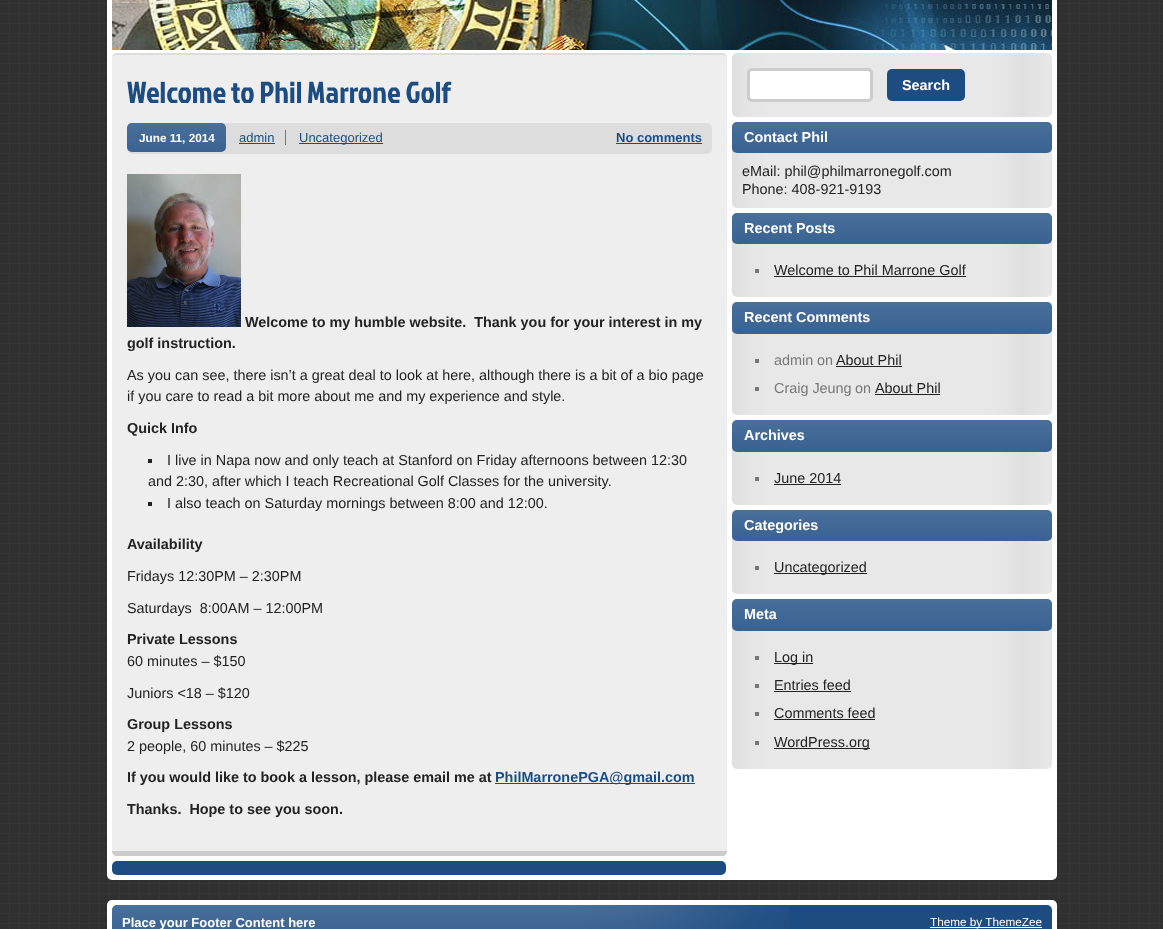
async function draw(canvas) {
	canvas.width = 1163;
	canvas.height = 929;
	const c = canvas.getContext('2d');
	c.miterLimit = 4;
	c.fontKerning = 'normal';
	async function loadImage(src) {
		const img = new Image();
		img.src = src;
		await img.decode();
		return img;
	}

	c.fillStyle = '#fff';
	c.fillRect(0, 0, 1163, 929);
	c.drawImage(await loadImage('img1.png'), 0, 0, 1163, 929);
	c.beginPath();
	c.roundRect(107, -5, 950, 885, 5);
	c.fill();
	c.drawImage(await loadImage('img2.png'), 112, 0, 940, 50);
	c.fillStyle = '#eee';
	c.beginPath();
	c.roundRect(112, 53, 615, 803, 5);
	c.fill();
	c.fillStyle = '#ddd';
	c.beginPath();
	c.moveTo(117, 53);
	c.bezierCurveTo(114, 53, 112, 55, 112, 58);
	c.bezierCurveTo(112, 56, 114, 55, 117, 55);
	c.lineTo(722, 55);
	c.bezierCurveTo(725, 55, 727, 56, 727, 58);
	c.bezierCurveTo(727, 55, 725, 53, 722, 53);
	c.closePath();
	c.fill();
	c.fillStyle = '#ccc';
	c.beginPath();
	c.moveTo(722, 856);
	c.bezierCurveTo(725, 856, 727, 854, 727, 851);
	c.lineTo(112, 851);
	c.bezierCurveTo(112, 854, 114, 856, 117, 856);
	c.closePath();
	c.fill();
	c.font = '30.25px Jockey One';
	c.fillStyle = '#1d4c82';
	c.fillText('Welcome to Phil Marrone Golf', 127, 103);
	c.fillStyle = '#ddd';
	c.beginPath();
	c.roundRect(127, 123, 585, 31, 5);
	c.fill();
	c.fillStyle = '#1d4c82';
	c.beginPath();
	c.roundRect(127, 123, 99, 29, 5);
	c.fill();
	c.drawImage(await loadImage('img3.png'), 127, 123, 99, 29);
	c.font = '13px Liberation Sans';
	c.fillText('admin', 239, 142);
	for (const [x, y, w, h, color] of [
		[285, 130, 1, 15, '#777'],
		[239, 143, 36, 1, '#1d4c82'],
		[299, 143, 84, 1, '#1d4c82'],
	]) {
		c.fillStyle = color;
		c.fillRect(x, y, w, h);
	}
	c.fillText('Uncategorized', 299, 142);
	c.font = 'bold 11.75px Liberation Sans';
	c.fillStyle = '#fff';
	c.fillText('June 11, 2014', 139, 142);
	c.font = 'bold 13px Liberation Sans';
	c.fillStyle = '#1d4c82';
	c.fillText('No comments', 616, 142);
	c.fillRect(616, 143, 86, 1);
	c.drawImage(await loadImage('img4.png'), 127, 174, 114, 153);
	c.font = 'bold 14.4px Liberation Sans';
	c.fillStyle = '#222';
	c.fillText('Welcome to my humble website.  Thank you for your interest in my', 245, 327);
	c.fillText('golf instruction.', 127, 348);
	c.font = '14.4px Liberation Sans';
	c.fillText('As you can see, there isn’t a great deal to look at here, although there is a bit of a bio page', 127, 380);
	c.fillText('if you care to read a bit more about me and my experience and style.', 127, 401);
	c.font = 'bold 14.4px Liberation Sans';
	c.fillText('Quick Info', 127, 433);
	c.fillRect(148, 459, 4, 4);
	c.font = '14.4px Liberation Sans';
	c.fillText('I live in Napa now and only teach at Stanford on Friday afternoons between 12:30', 167, 465);
	c.fillText('and 2:30, after which I teach Recreational Golf Classes for the university.', 148, 486);
	c.fillRect(148, 502, 4, 4);
	c.fillText('I also teach on Saturday mornings between 8:00 and 12:00.', 167, 508);
	c.font = 'bold 14.4px Liberation Sans';
	c.fillText('Availability', 127, 549);
	c.font = '14.4px Liberation Sans';
	c.fillText('Fridays 12:30PM – 2:30PM', 127, 581);
	c.fillText('Saturdays  8:00AM – 12:00PM', 127, 613);
	c.font = 'bold 14.4px Liberation Sans';
	c.fillText('Private Lessons', 127, 644);
	c.font = '14.4px Liberation Sans';
	c.fillText('60 minutes – $150', 127, 666);
	c.fillText('Juniors <18 – $120', 127, 698);
	c.font = 'bold 14.4px Liberation Sans';
	c.fillText('Group Lessons', 127, 729);
	c.font = '14.4px Liberation Sans';
	c.fillText('2 people, 60 minutes – $225', 127, 751);
	c.font = 'bold 14.4px Liberation Sans';
	c.fillText('If you would like to book a lesson, please email me at', 127, 782);
	c.fillStyle = '#1d4c82';
	c.fillRect(495, 783, 200, 1);
	c.fillText('PhilMarronePGA@gmail.com', 495, 782);
	c.fillStyle = '#222';
	c.fillText('Thanks.  Hope to see you soon.', 127, 814);
	c.fillStyle = '#1d4c82';
	c.beginPath();
	c.roundRect(112, 861, 614, 14, 5);
	c.fill();
	c.drawImage(await loadImage('img5.png'), 732, 53, 320, 64);
	c.fillStyle = '#fff';
	c.beginPath();
	c.roundRect(748.5, 69.5, 123, 31, 3.5);
	c.fill();
	c.strokeStyle = '#ccc';
	c.lineWidth = 3;
	c.stroke();
	c.fillStyle = '#1d4c82';
	c.beginPath();
	c.roundRect(887, 69, 78, 32, 5);
	c.fill();
	c.fillStyle = '#fff';
	c.fillText('Search', 902, 90);
	c.drawImage(await loadImage('img6.png'), 732, 122, 320, 86);
	c.fillStyle = '#1d4c82';
	c.beginPath();
	c.roundRect(732, 122, 320, 31, 5);
	c.fill();
	c.drawImage(await loadImage('img7.png'), 732, 122, 320, 31);
	c.fillStyle = '#fff';
	c.fillText('Contact Phil', 744, 142);
	c.font = '14.4px Liberation Sans';
	c.fillStyle = '#222';
	c.fillText('eMail: phil@philmarronegolf.com', 742, 176);
	c.fillText('Phone: 408-921-9193', 742, 194);
	c.drawImage(await loadImage('img8.png'), 732, 213, 320, 84);
	c.fillStyle = '#1d4c82';
	c.beginPath();
	c.roundRect(732, 213, 320, 31, 5);
	c.fill();
	c.drawImage(await loadImage('img7.png'), 732, 213, 320, 31);
	c.font = 'bold 14.4px Liberation Sans';
	c.fillStyle = '#fff';
	c.fillText('Recent Posts', 744, 233);
	c.fillStyle = '#777';
	c.fillRect(755, 269, 4, 4);
	c.font = '14.4px Liberation Sans';
	c.fillStyle = '#222';
	c.fillText('Welcome to Phil Marrone Golf', 774, 275);
	c.fillRect(774, 276, 192, 1);
	c.drawImage(await loadImage('img9.png'), 732, 302, 320, 113);
	c.fillStyle = '#1d4c82';
	c.beginPath();
	c.roundRect(732, 302, 320, 32, 5);
	c.fill();
	c.drawImage(await loadImage('img10.png'), 732, 302, 320, 32);
	c.font = 'bold 14.4px Liberation Sans';
	c.fillStyle = '#fff';
	c.fillText('Recent Comments', 744, 322);
	c.fillStyle = '#777';
	c.fillRect(755, 359, 4, 4);
	c.font = '14.4px Liberation Sans';
	c.fillText('admin', 774, 365);
	c.fillText('on', 817, 365);
	c.fillStyle = '#222';
	c.fillText('About Phil', 836, 365);
	c.fillRect(836, 366, 66, 1);
	c.fillStyle = '#777';
	c.fillRect(755, 387, 4, 4);
	c.fillText('Craig Jeung', 774, 393);
	c.fillText('on', 855, 393);
	c.fillStyle = '#222';
	c.fillText('About Phil', 875, 393);
	c.fillRect(875, 394, 65, 1);
	c.drawImage(await loadImage('img11.png'), 732, 420, 320, 85);
	c.fillStyle = '#1d4c82';
	c.beginPath();
	c.roundRect(732, 420, 320, 32, 5);
	c.fill();
	c.drawImage(await loadImage('img10.png'), 732, 420, 320, 32);
	c.font = 'bold 14.4px Liberation Sans';
	c.fillStyle = '#fff';
	c.fillText('Archives', 744, 440);
	c.fillStyle = '#777';
	c.fillRect(755, 477, 4, 4);
	c.font = '14.4px Liberation Sans';
	c.fillStyle = '#222';
	c.fillText('June 2014', 774, 483);
	c.fillRect(774, 484, 67, 1);
	c.drawImage(await loadImage('img8.png'), 732, 510, 320, 84);
	c.fillStyle = '#1d4c82';
	c.beginPath();
	c.roundRect(732, 510, 320, 31, 5);
	c.fill();
	c.drawImage(await loadImage('img7.png'), 732, 510, 320, 31);
	c.font = 'bold 14.4px Liberation Sans';
	c.fillStyle = '#fff';
	c.fillText('Categories', 744, 530);
	c.fillStyle = '#777';
	c.fillRect(755, 566, 4, 4);
	c.fillStyle = '#222';
	c.fillRect(774, 573, 93, 1);
	c.font = '14.4px Liberation Sans';
	c.fillText('Uncategorized', 774, 572);
	c.drawImage(await loadImage('img12.png'), 732, 599, 320, 170);
	c.fillStyle = '#1d4c82';
	c.beginPath();
	c.roundRect(732, 599, 320, 32, 5);
	c.fill();
	c.drawImage(await loadImage('img10.png'), 732, 599, 320, 32);
	c.font = 'bold 14.4px Liberation Sans';
	c.fillStyle = '#fff';
	c.fillText('Meta', 744, 619);
	c.fillStyle = '#777';
	c.fillRect(755, 656, 4, 4);
	c.fillStyle = '#222';
	c.fillRect(774, 663, 39, 1);
	c.font = '14.4px Liberation Sans';
	c.fillText('Log in', 774, 662);
	c.fillStyle = '#777';
	c.fillRect(755, 684, 4, 4);
	c.fillStyle = '#222';
	c.fillText('Entries feed', 774, 690);
	c.fillRect(774, 691, 77, 1);
	c.fillStyle = '#777';
	c.fillRect(755, 712, 4, 4);
	c.fillStyle = '#222';
	c.fillText('Comments feed', 774, 718);
	for (const [x, y, w, h, color] of [
		[774, 719, 101, 1, '#222'],
		[755, 741, 4, 4, '#777'],
		[774, 748, 96, 1, '#222'],
	]) {
		c.fillStyle = color;
		c.fillRect(x, y, w, h);
	}
	c.fillText('WordPress.org', 774, 747);
	c.fillStyle = '#fff';
	c.beginPath();
	c.roundRect(107, 900, 950, 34, 5);
	c.fill();
	c.fillStyle = '#1d4c82';
	c.beginPath();
	c.roundRect(112, 905, 940, 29, 5);
	c.fill();
	c.drawImage(await loadImage('img13.png'), 112, 905, 677, 24);
	c.font = 'bold 13px Liberation Sans';
	c.fillStyle = '#fff';
	c.fillText('Place your Footer Content here', 122, 927);
	c.fillRect(930, 927, 112, 1);
	c.font = '11.75px Liberation Sans';
	c.fillText('Theme by ThemeZee', 930, 926);
}

draw(document.querySelector('canvas'));
